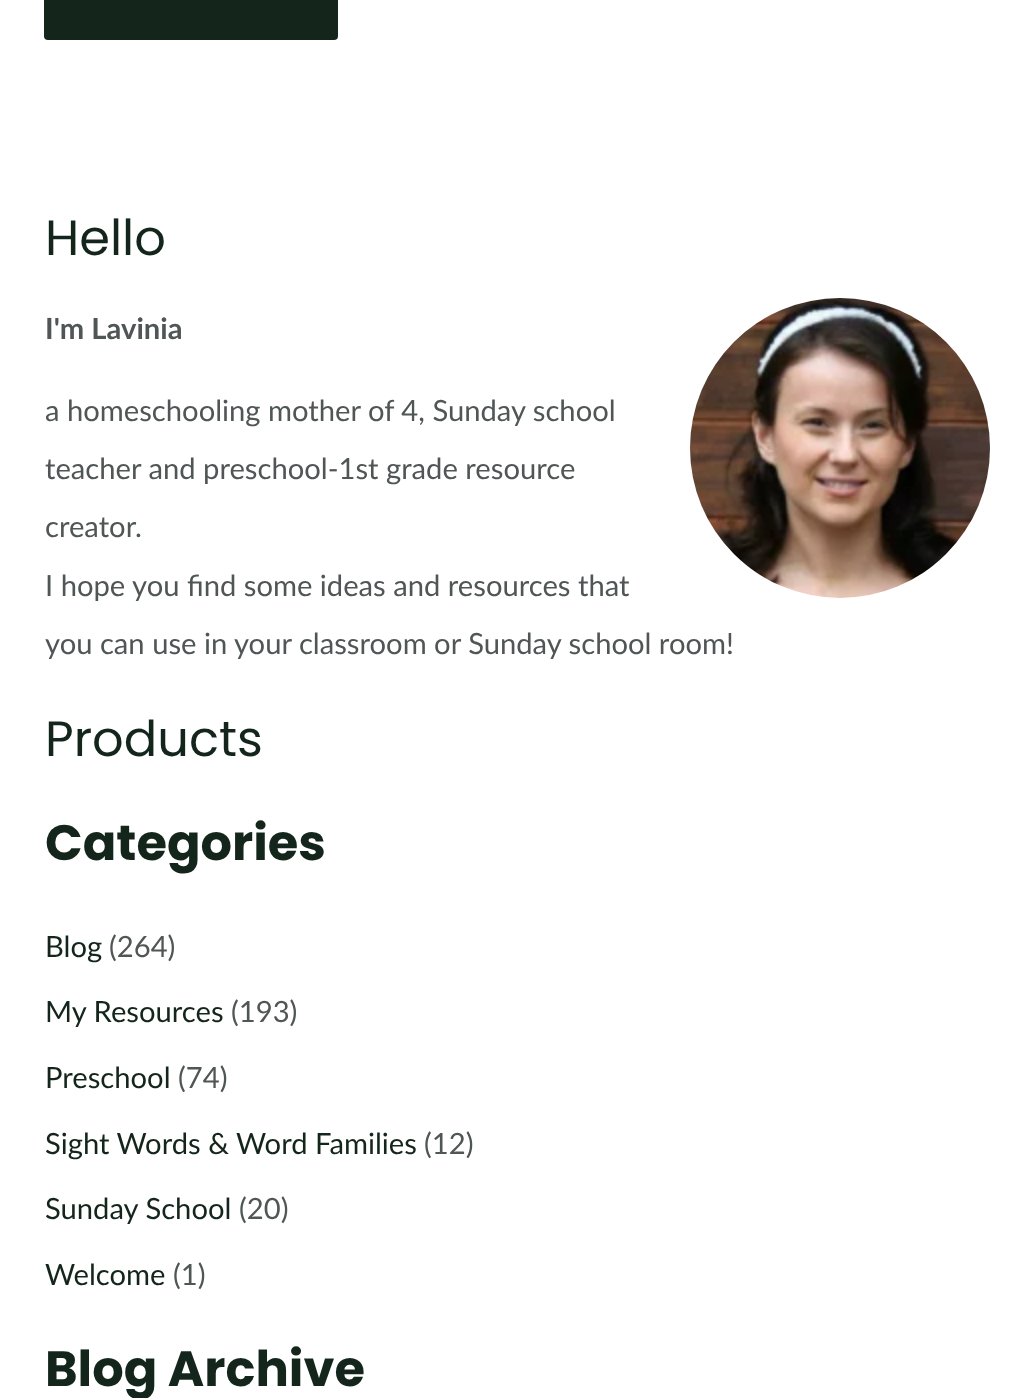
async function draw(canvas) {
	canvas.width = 1033;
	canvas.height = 1398;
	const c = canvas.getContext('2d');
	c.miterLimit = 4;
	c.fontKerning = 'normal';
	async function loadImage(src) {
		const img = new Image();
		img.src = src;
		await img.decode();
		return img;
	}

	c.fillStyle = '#fff';
	c.fillRect(0, 0, 1033, 1398);
	c.fillStyle = '#14261c';
	c.beginPath();
	c.roundRect(44, -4, 294, 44, 4);
	c.fill();
	c.font = '49.5px Poppins';
	c.fillText('Hello', 45, 255);
	c.font = 'bold 29.2px Lato';
	c.fillStyle = '#4f5655';
	c.fillText('I\'m Lavinia', 45, 339);
	c.drawImage(await loadImage('img1.png'), 690, 298, 300, 300);
	c.font = '29.2px Lato';
	for (const [text, x, y] of [
		['a homeschooling mother of 4, Sunday school', 45, 421],
		['teacher and preschool-1st grade resource', 45, 479],
		['creator.', 45, 537],
		['I hope you find some ideas and resources that', 45, 596],
		['you can use in your classroom or Sunday school room!', 45, 654],
	]) {
		c.fillText(text, x, y);
	}
	c.font = '49.5px Poppins';
	c.fillStyle = '#14261c';
	c.fillText('Products', 45, 756);
	c.font = 'bold 49.5px Poppins';
	c.fillText('Categories', 45, 860);
	c.font = '29.2px Lato';
	c.fillText('Blog', 45, 957);
	c.fillStyle = '#4f5655';
	c.fillText('(264)', 109, 957);
	c.fillStyle = '#14261c';
	c.fillText('My Resources', 45, 1022);
	c.fillStyle = '#4f5655';
	c.fillText('(193)', 231, 1022);
	c.fillStyle = '#14261c';
	c.fillText('Preschool', 45, 1088);
	c.fillStyle = '#4f5655';
	c.fillText('(74)', 178, 1088);
	c.fillStyle = '#14261c';
	c.fillText('Sight Words & Word Families', 45, 1154);
	c.fillStyle = '#4f5655';
	c.fillText('(12)', 424, 1154);
	c.fillStyle = '#14261c';
	c.fillText('Sunday School', 45, 1219);
	c.fillStyle = '#4f5655';
	c.fillText('(20)', 239, 1219);
	c.fillStyle = '#14261c';
	c.fillText('Welcome', 45, 1285);
	c.fillStyle = '#4f5655';
	c.fillText('(1)', 173, 1285);
	c.font = 'bold 49.5px Poppins';
	c.fillStyle = '#14261c';
	c.fillText('Blog Archive', 45, 1386);
}

draw(document.querySelector('canvas'));
